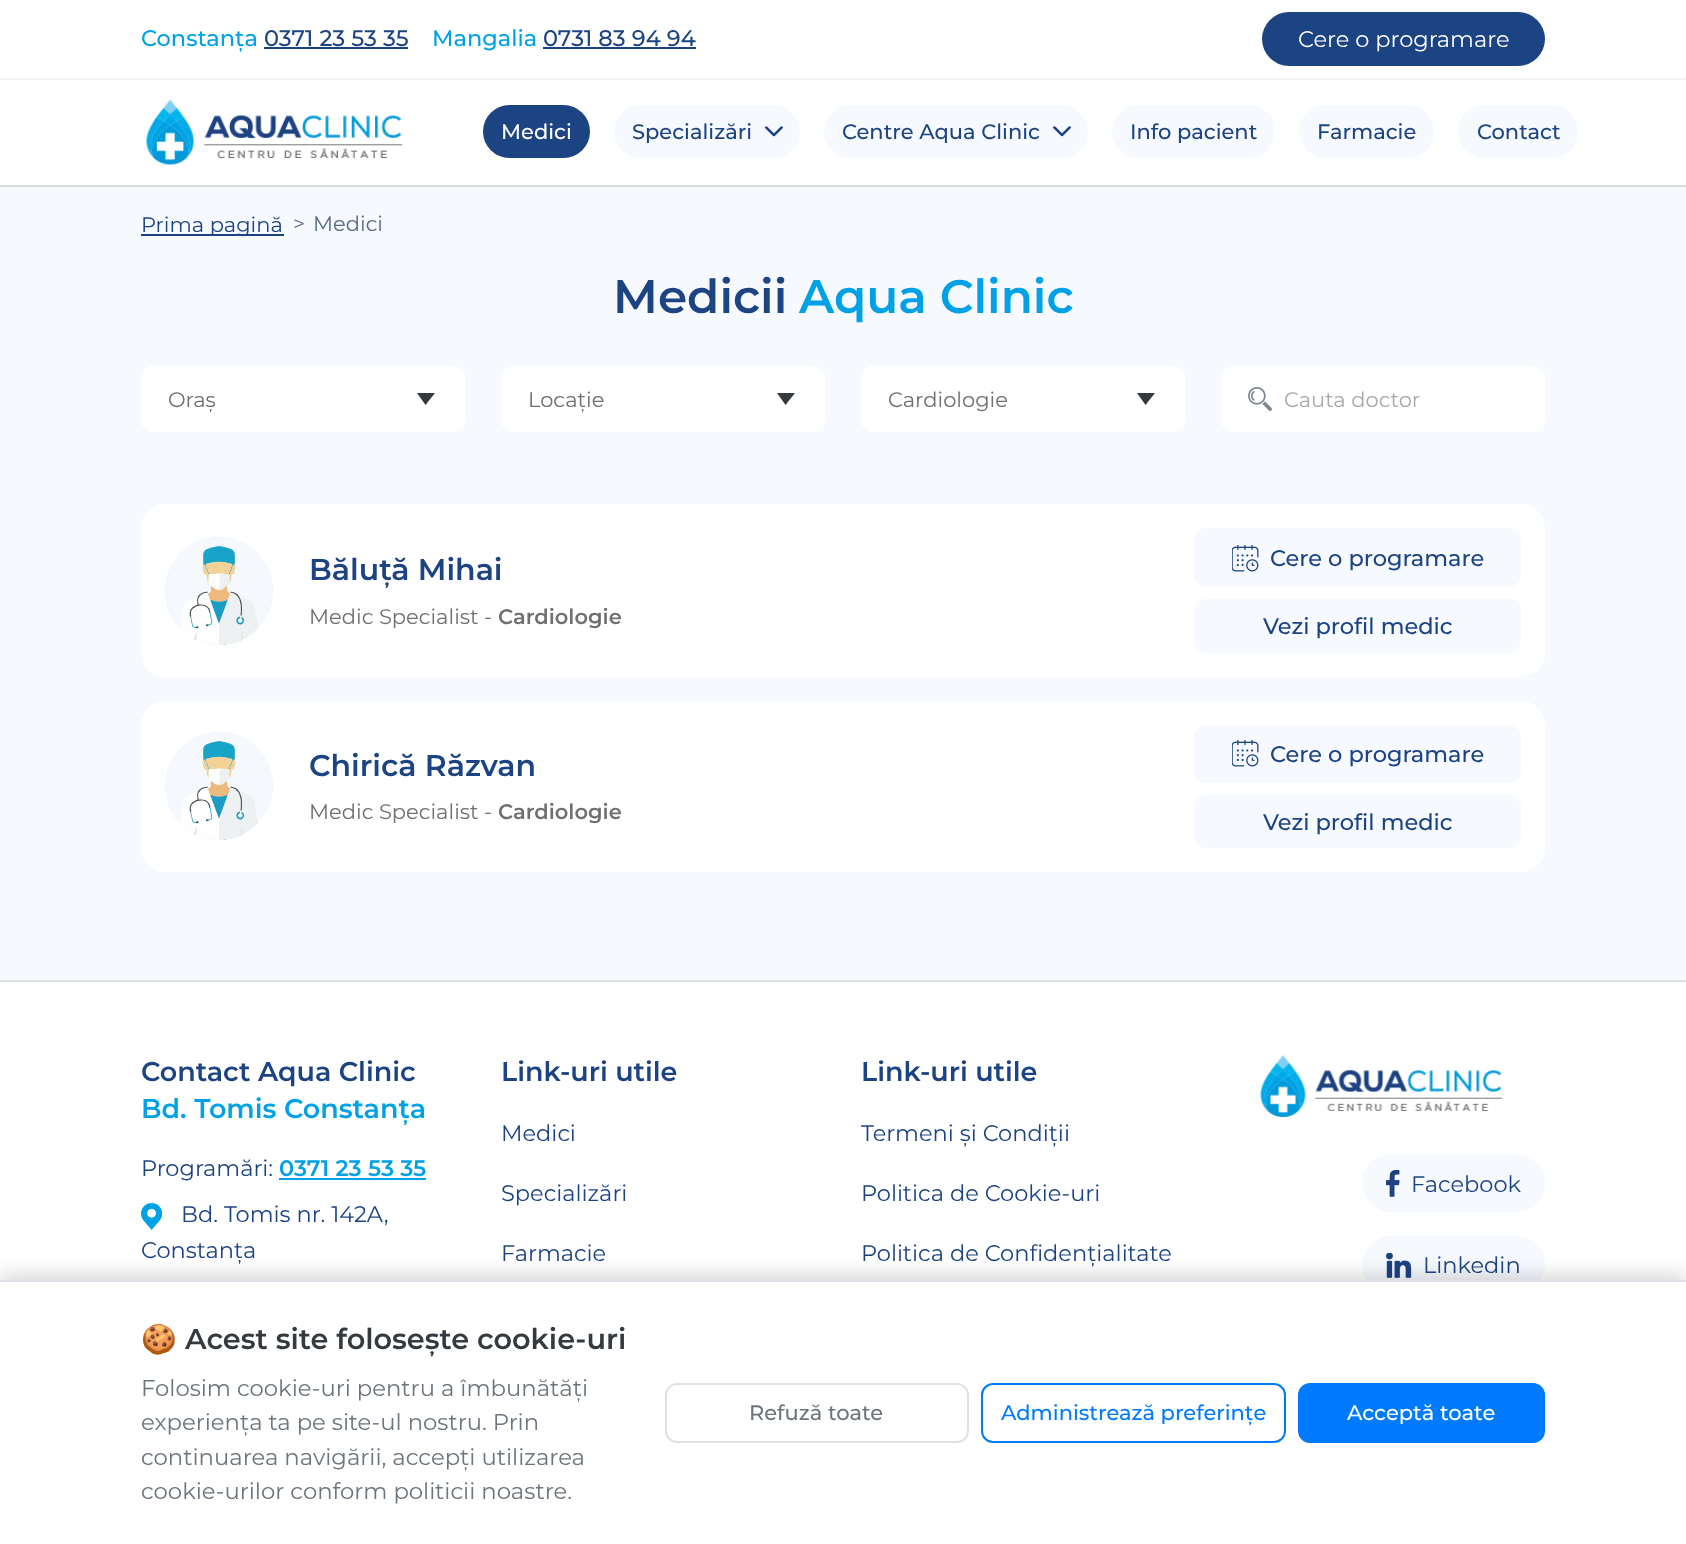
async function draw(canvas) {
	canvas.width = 1686;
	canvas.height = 1544;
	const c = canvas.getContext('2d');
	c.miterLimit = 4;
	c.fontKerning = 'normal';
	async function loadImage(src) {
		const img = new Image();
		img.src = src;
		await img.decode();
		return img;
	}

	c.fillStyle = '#f6f9fe';
	c.fillRect(0, 0, 1686, 1544);
	c.fillStyle = '#fff';
	c.fillRect(0, 0, 1686, 78);
	c.fillStyle = '#f2f2f2';
	c.fillRect(0, 78, 1686, 2);
	c.font = '500 22.5px Montserrat';
	c.fillStyle = '#00a1e6';
	c.fillText('Constanța', 141, 46);
	c.fillStyle = '#1c4382';
	c.fillText('0371 23 53 35', 264, 46);
	c.fillRect(264, 47, 144, 2);
	c.fillStyle = '#00a1e6';
	c.fillText('Mangalia', 432, 46);
	c.fillStyle = '#1c4382';
	c.fillText('0731 83 94 94', 543, 46);
	c.fillRect(543, 47, 153, 2);
	c.beginPath();
	c.roundRect(1262, 12, 283, 54, 27);
	c.fill();
	c.font = '22.5px Montserrat';
	c.fillStyle = '#fff';
	c.fillText('Cere o programare', 1298, 47);
	c.fillRect(0, 80, 1686, 105);
	c.fillStyle = '#dbdbdb';
	c.fillRect(0, 185, 1686, 2);
	c.drawImage(await loadImage('img1.png'), 146, 99, 257, 66);
	c.fillStyle = '#1c4382';
	c.beginPath();
	c.roundRect(483, 105, 107, 53, 26.5);
	c.fill();
	c.font = '500 21px Montserrat';
	c.fillStyle = '#fff';
	c.fillText('Medici', 501, 139);
	c.fillStyle = '#f6f9fe';
	c.beginPath();
	c.roundRect(614, 105, 186, 53, 26.5);
	c.fill();
	c.fillStyle = '#1c4382';
	c.fillText('Specializări', 632, 139);
	c.drawImage(await loadImage('img2.png'), 764, 126, 19, 11);
	c.fillStyle = '#f6f9fe';
	c.beginPath();
	c.roundRect(824, 105, 264, 53, 26.5);
	c.fill();
	c.fillStyle = '#1c4382';
	c.fillText('Centre Aqua Clinic', 842, 139);
	c.drawImage(await loadImage('img3.png'), 1053, 126, 18, 11);
	c.fillStyle = '#f6f9fe';
	c.beginPath();
	c.roundRect(1112, 105, 163, 53, 26.5);
	c.fill();
	c.fillStyle = '#1c4382';
	c.fillText('Info pacient', 1130, 139);
	c.fillStyle = '#f6f9fe';
	c.beginPath();
	c.roundRect(1299, 105, 135, 53, 26.5);
	c.fill();
	c.fillStyle = '#1c4382';
	c.fillText('Farmacie', 1317, 139);
	c.fillStyle = '#f6f9fe';
	c.beginPath();
	c.roundRect(1458, 105, 120, 53, 26.5);
	c.fill();
	c.fillStyle = '#1c4382';
	c.fillText('Contact', 1477, 139);
	c.fillRect(141, 234, 143, 2);
	c.font = '21px Montserrat';
	c.fillText('Prima pagină', 141, 232);
	c.fillStyle = '#576b8a';
	c.fillText('>', 293, 231);
	c.fillText('Medici', 313, 231);
	c.font = '600 47px Montserrat';
	c.fillStyle = '#1c4382';
	c.fillText('Medicii', 613, 313);
	c.fillStyle = '#00a1e6';
	c.fillText('Aqua Clinic', 799, 313);
	c.fillStyle = '#fff';
	c.beginPath();
	c.roundRect(141, 366, 324, 66, 12);
	c.fill();
	c.font = '21px Montserrat';
	c.fillStyle = '#707070';
	c.fillText('Oraș', 168, 407);
	c.fillStyle = '#373a3c';
	c.beginPath();
	c.moveTo(417, 393);
	c.lineTo(435, 393);
	c.lineTo(425.5, 405);
	c.closePath();
	c.fill();
	c.fillStyle = '#fff';
	c.beginPath();
	c.roundRect(501, 366, 324, 66, 12);
	c.fill();
	c.fillStyle = '#707070';
	c.fillText('Locație', 528, 407);
	c.fillStyle = '#373a3c';
	c.beginPath();
	c.moveTo(777, 393);
	c.lineTo(795, 393);
	c.lineTo(785.5, 405);
	c.closePath();
	c.fill();
	c.fillStyle = '#fff';
	c.beginPath();
	c.roundRect(861, 366, 324, 66, 12);
	c.fill();
	c.fillStyle = '#707070';
	c.fillText('Cardiologie', 888, 407);
	c.fillStyle = '#373a3c';
	c.beginPath();
	c.moveTo(1137, 393);
	c.lineTo(1155, 393);
	c.lineTo(1145.5, 405);
	c.closePath();
	c.fill();
	c.fillStyle = '#fff';
	c.beginPath();
	c.roundRect(1221, 366, 324, 66, 12);
	c.fill();
	c.drawImage(await loadImage('img4.png'), 1248, 387, 24, 24);
	c.fillStyle = '#a9a9a9';
	c.fillText('Cauta doctor', 1284, 407);
	c.fillStyle = '#fff';
	c.beginPath();
	c.roundRect(141, 504, 1404, 173, 24);
	c.fill();
	c.drawImage(await loadImage('img5.png'), 165, 537, 108, 108);
	c.font = '600 30px Montserrat';
	c.fillStyle = '#1c4382';
	c.fillText('Băluță Mihai', 309, 580);
	c.font = '21px Montserrat';
	c.fillStyle = '#707070';
	c.fillText('Medic Specialist -', 309, 624);
	c.font = '600 21px Montserrat';
	c.fillText('Cardiologie', 498, 624);
	c.fillStyle = '#f6f9fe';
	c.beginPath();
	c.roundRect(1194, 528, 327, 59, 12);
	c.fill();
	c.drawImage(await loadImage('img6.png'), 1232, 545, 27, 27);
	c.font = '500 22.5px Montserrat';
	c.fillStyle = '#1c4382';
	c.fillText('Cere o programare', 1270, 566);
	c.fillStyle = '#f6f9fe';
	c.beginPath();
	c.roundRect(1194, 599, 327, 54, 12);
	c.fill();
	c.fillStyle = '#1c4382';
	c.fillText('Vezi profil medic', 1263, 634);
	c.fillStyle = '#fff';
	c.beginPath();
	c.roundRect(141, 701, 1404, 171, 24);
	c.fill();
	c.drawImage(await loadImage('img7.png'), 165, 732, 108, 108);
	c.font = '600 30px Montserrat';
	c.fillStyle = '#1c4382';
	c.fillText('Chirică Răzvan', 309, 776);
	c.font = '21px Montserrat';
	c.fillStyle = '#707070';
	c.fillText('Medic Specialist -', 309, 819);
	c.font = '600 21px Montserrat';
	c.fillText('Cardiologie', 498, 819);
	c.fillStyle = '#f6f9fe';
	c.beginPath();
	c.roundRect(1194, 725, 327, 58, 12);
	c.fill();
	c.drawImage(await loadImage('img6.png'), 1232, 740, 27, 27);
	c.font = '500 22.5px Montserrat';
	c.fillStyle = '#1c4382';
	c.fillText('Cere o programare', 1270, 762);
	c.fillStyle = '#f6f9fe';
	c.beginPath();
	c.roundRect(1194, 795, 327, 53, 12);
	c.fill();
	c.fillStyle = '#1c4382';
	c.fillText('Vezi profil medic', 1263, 830);
	c.fillStyle = '#fff';
	c.fillRect(0, 982, 1686, 298);
	c.fillStyle = '#dee2e6';
	c.fillRect(0, 980, 1686, 2);
	c.font = '600 27px Montserrat';
	c.fillStyle = '#1c4382';
	c.fillText('Contact Aqua Clinic', 141, 1081);
	c.fillStyle = '#00a1e6';
	c.fillText('Bd. Tomis Constanța', 141, 1118);
	c.font = '22.5px Montserrat';
	c.fillStyle = '#1c4382';
	c.fillText('Programări:', 141, 1176);
	c.font = '600 22.5px Montserrat';
	c.fillStyle = '#00a1e6';
	c.fillText('0371 23 53 35', 279, 1176);
	c.fillRect(279, 1178, 147, 2);
	c.drawImage(await loadImage('img8.png'), 141, 1203, 21, 27);
	c.font = '22.5px Montserrat';
	c.fillStyle = '#1c4382';
	c.fillText('Bd. Tomis nr. 142A,', 181, 1222);
	c.fillText('Constanța', 141, 1258);
	c.font = '600 27px Montserrat';
	c.fillText('Link-uri utile', 501, 1081);
	c.font = '22.5px Montserrat';
	for (const [text, x, y] of [
		['Medici', 501, 1141],
		['Specializări', 501, 1201],
		['Farmacie', 501, 1261],
	]) {
		c.fillText(text, x, y);
	}
	c.font = '600 27px Montserrat';
	c.fillText('Link-uri utile', 861, 1081);
	c.font = '22.5px Montserrat';
	for (const [text, x, y] of [
		['Termeni și Condiții', 861, 1141],
		['Politica de Cookie-uri', 861, 1201],
		['Politica de Confidențialitate', 861, 1261],
	]) {
		c.fillText(text, x, y);
	}
	c.drawImage(await loadImage('img9.png'), 1260, 1055, 243, 62);
	c.fillStyle = '#f6f9fe';
	c.beginPath();
	c.roundRect(1362, 1155, 183, 57, 28.5);
	c.fill();
	c.drawImage(await loadImage('img10.png'), 1386, 1170, 14, 27);
	c.fillStyle = '#1c4382';
	c.fillText('Facebook', 1411, 1192);
	c.fillStyle = '#f6f9fe';
	c.beginPath();
	c.roundRect(1362, 1236, 183, 57, 28.5);
	c.fill();
	c.drawImage(await loadImage('img11.png'), 1386, 1253, 26, 25);
	c.fillStyle = '#1c4382';
	c.fillText('Linkedin', 1423, 1273);
	c.fillStyle = '#00000026';
	c.filter = 'blur(9px)';
	c.beginPath();
	c.rect(0, 1274, 1686, 265);
	c.fill();
	c.filter = 'none';
	c.fillStyle = '#fff';
	c.fillRect(0, 1282, 1686, 262);
	c.fillStyle = '#dee2e6';
	c.fillRect(0, 1280, 1686, 2);
	c.font = 'bold 28.75px Noto Color Emoji';
	c.fillStyle = '#343a40';
	c.fillText('🍪', 141, 1349);
	c.font = '600 28.75px Montserrat';
	c.fillText('Acest site folosește cookie-uri', 185, 1349);
	c.font = '22.75px Montserrat';
	c.fillStyle = '#6c757d';
	for (const [text, x, y] of [
		['Folosim cookie-uri pentru a îmbunătăți', 141, 1396],
		['experiența ta pe site-ul nostru. Prin', 141, 1430],
		['continuarea navigării, accepți utilizarea', 141, 1465],
		['cookie-urilor conform politicii noastre.', 141, 1499],
	]) {
		c.fillText(text, x, y);
	}
	c.beginPath();
	c.roundRect(666, 1384, 302, 58, 11);
	c.strokeStyle = '#dee2e6';
	c.lineWidth = 2;
	c.stroke();
	c.font = '500 21px Montserrat';
	c.fillText('Refuză toate', 749, 1420);
	c.beginPath();
	c.roundRect(982, 1384, 303, 58, 11);
	c.strokeStyle = '#007bff';
	c.stroke();
	c.fillStyle = '#007bff';
	c.fillText('Administrează preferințe', 1001, 1420);
	c.beginPath();
	c.roundRect(1299, 1384, 245, 58, 11);
	c.fill();
	c.stroke();
	c.fillStyle = '#fff';
	c.fillText('Acceptă toate', 1347, 1420);
}

draw(document.querySelector('canvas'));
